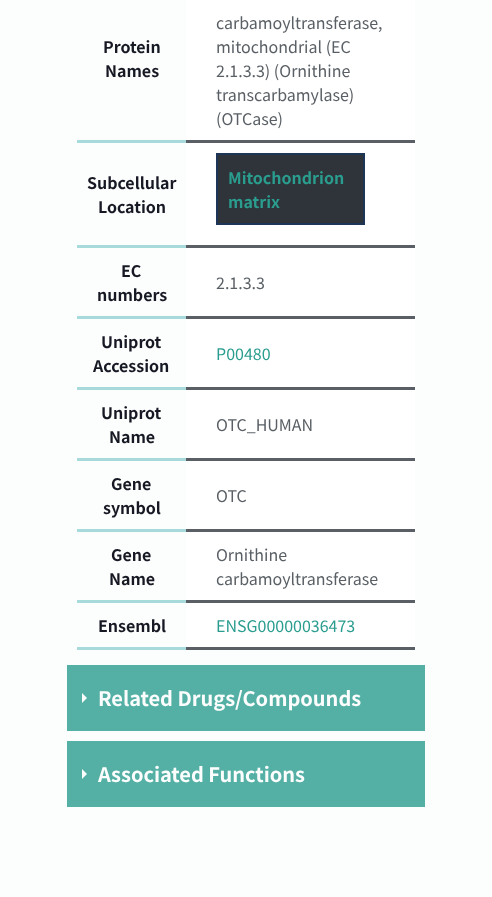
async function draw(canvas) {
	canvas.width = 492;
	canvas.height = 897;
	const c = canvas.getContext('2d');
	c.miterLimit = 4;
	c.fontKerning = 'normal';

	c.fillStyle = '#fcfdfd';
	c.fillRect(0, 0, 492, 897);
	c.fillStyle = '#a8dadc';
	c.fillRect(77, 140, 109, 3);
	c.font = 'bold 16px Noto Sans TC';
	c.fillStyle = '#161923';
	c.fillText('Protein', 103, 53);
	c.fillText('Names', 105, 77);
	c.fillStyle = '#fff';
	c.fillRect(186, 0, 229, 140);
	c.fillStyle = '#595f64';
	c.fillRect(186, 140, 229, 3);
	c.font = '16px Noto Sans TC';
	for (const [text, x, y] of [
		['carbamoyltransferase,', 216, 29],
		['mitochondrial (EC', 216, 53],
		['2.1.3.3) (Ornithine', 216, 77],
		['transcarbamylase)', 216, 101],
		['(OTCase)', 216, 125],
	]) {
		c.fillText(text, x, y);
	}
	c.fillStyle = '#a8dadc';
	c.fillRect(77, 245, 109, 3);
	c.font = 'bold 16px Noto Sans TC';
	c.fillStyle = '#161923';
	c.fillText('Subcellular', 87, 189);
	c.fillText('Location', 98, 213);
	c.fillStyle = '#fff';
	c.fillRect(186, 143, 229, 102);
	c.fillStyle = '#595f64';
	c.fillRect(186, 245, 229, 3);
	c.fillStyle = '#2e3439';
	c.beginPath();
	c.rect(217, 154, 147, 70);
	c.fill();
	c.strokeStyle = '#1d3557';
	c.lineWidth = 2;
	c.stroke();
	c.fillStyle = '#2a9d8f';
	c.fillText('Mitochondrion', 228, 184);
	c.fillText('matrix', 228, 208);
	c.fillStyle = '#a8dadc';
	c.fillRect(77, 316, 109, 3);
	c.fillStyle = '#161923';
	c.fillText('EC', 121, 277);
	c.fillText('numbers', 97, 301);
	c.fillStyle = '#fff';
	c.fillRect(186, 248, 229, 68);
	c.fillStyle = '#595f64';
	c.fillRect(186, 316, 229, 3);
	c.font = '16px Noto Sans TC';
	c.fillText('2.1.3.3', 216, 289);
	c.fillStyle = '#a8dadc';
	c.fillRect(77, 387, 109, 3);
	c.font = 'bold 16px Noto Sans TC';
	c.fillStyle = '#161923';
	c.fillText('Uniprot', 101, 348);
	c.fillText('Accession', 93, 372);
	c.fillStyle = '#fff';
	c.fillRect(186, 319, 229, 68);
	c.fillStyle = '#595f64';
	c.fillRect(186, 387, 229, 3);
	c.font = '16px Noto Sans TC';
	c.fillStyle = '#2a9d8f';
	c.fillText('P00480', 216, 360);
	c.fillStyle = '#a8dadc';
	c.fillRect(77, 458, 109, 3);
	c.font = 'bold 16px Noto Sans TC';
	c.fillStyle = '#161923';
	c.fillText('Uniprot', 101, 419);
	c.fillText('Name', 109, 443);
	c.fillStyle = '#fff';
	c.fillRect(186, 390, 229, 68);
	c.fillStyle = '#595f64';
	c.fillRect(186, 458, 229, 3);
	c.font = '16px Noto Sans TC';
	c.fillText('OTC_HUMAN', 216, 431);
	c.fillStyle = '#a8dadc';
	c.fillRect(77, 529, 109, 3);
	c.font = 'bold 16px Noto Sans TC';
	c.fillStyle = '#161923';
	c.fillText('Gene', 111, 490);
	c.fillText('symbol', 103, 514);
	c.fillStyle = '#fff';
	c.fillRect(186, 461, 229, 68);
	c.fillStyle = '#595f64';
	c.fillRect(186, 529, 229, 3);
	c.font = '16px Noto Sans TC';
	c.fillText('OTC', 216, 502);
	c.fillStyle = '#a8dadc';
	c.fillRect(77, 600, 109, 3);
	c.font = 'bold 16px Noto Sans TC';
	c.fillStyle = '#161923';
	c.fillText('Gene', 111, 561);
	c.fillText('Name', 109, 585);
	c.fillStyle = '#fff';
	c.fillRect(186, 532, 229, 68);
	c.fillStyle = '#595f64';
	c.fillRect(186, 600, 229, 3);
	c.font = '16px Noto Sans TC';
	c.fillText('Ornithine', 216, 561);
	c.fillText('carbamoyltransferase', 216, 585);
	c.fillStyle = '#a8dadc';
	c.fillRect(77, 647, 109, 3);
	c.font = 'bold 16px Noto Sans TC';
	c.fillStyle = '#161923';
	c.fillText('Ensembl', 98, 632);
	c.fillStyle = '#fff';
	c.fillRect(186, 603, 229, 44);
	c.fillStyle = '#595f64';
	c.fillRect(186, 647, 229, 3);
	c.font = '16px Noto Sans TC';
	c.fillStyle = '#2a9d8f';
	c.fillText('ENSG00000036473', 216, 632);
	c.fillStyle = '#54b0a5';
	c.fillRect(67, 665, 358, 66);
	c.fillStyle = '#fcfdfd';
	c.beginPath();
	c.moveTo(82, 703);
	c.lineTo(82, 693);
	c.lineTo(87, 698);
	c.closePath();
	c.fill();
	c.font = 'bold 20px Noto Sans TC';
	c.fillText('Related Drugs/Compounds', 98, 706);
	c.fillStyle = '#54b0a5';
	c.fillRect(67, 741, 358, 66);
	c.fillStyle = '#fcfdfd';
	c.beginPath();
	c.moveTo(82, 779);
	c.lineTo(82, 769);
	c.lineTo(87, 774);
	c.closePath();
	c.fill();
	c.fillText('Associated Functions', 98, 782);
}

draw(document.querySelector('canvas'));
